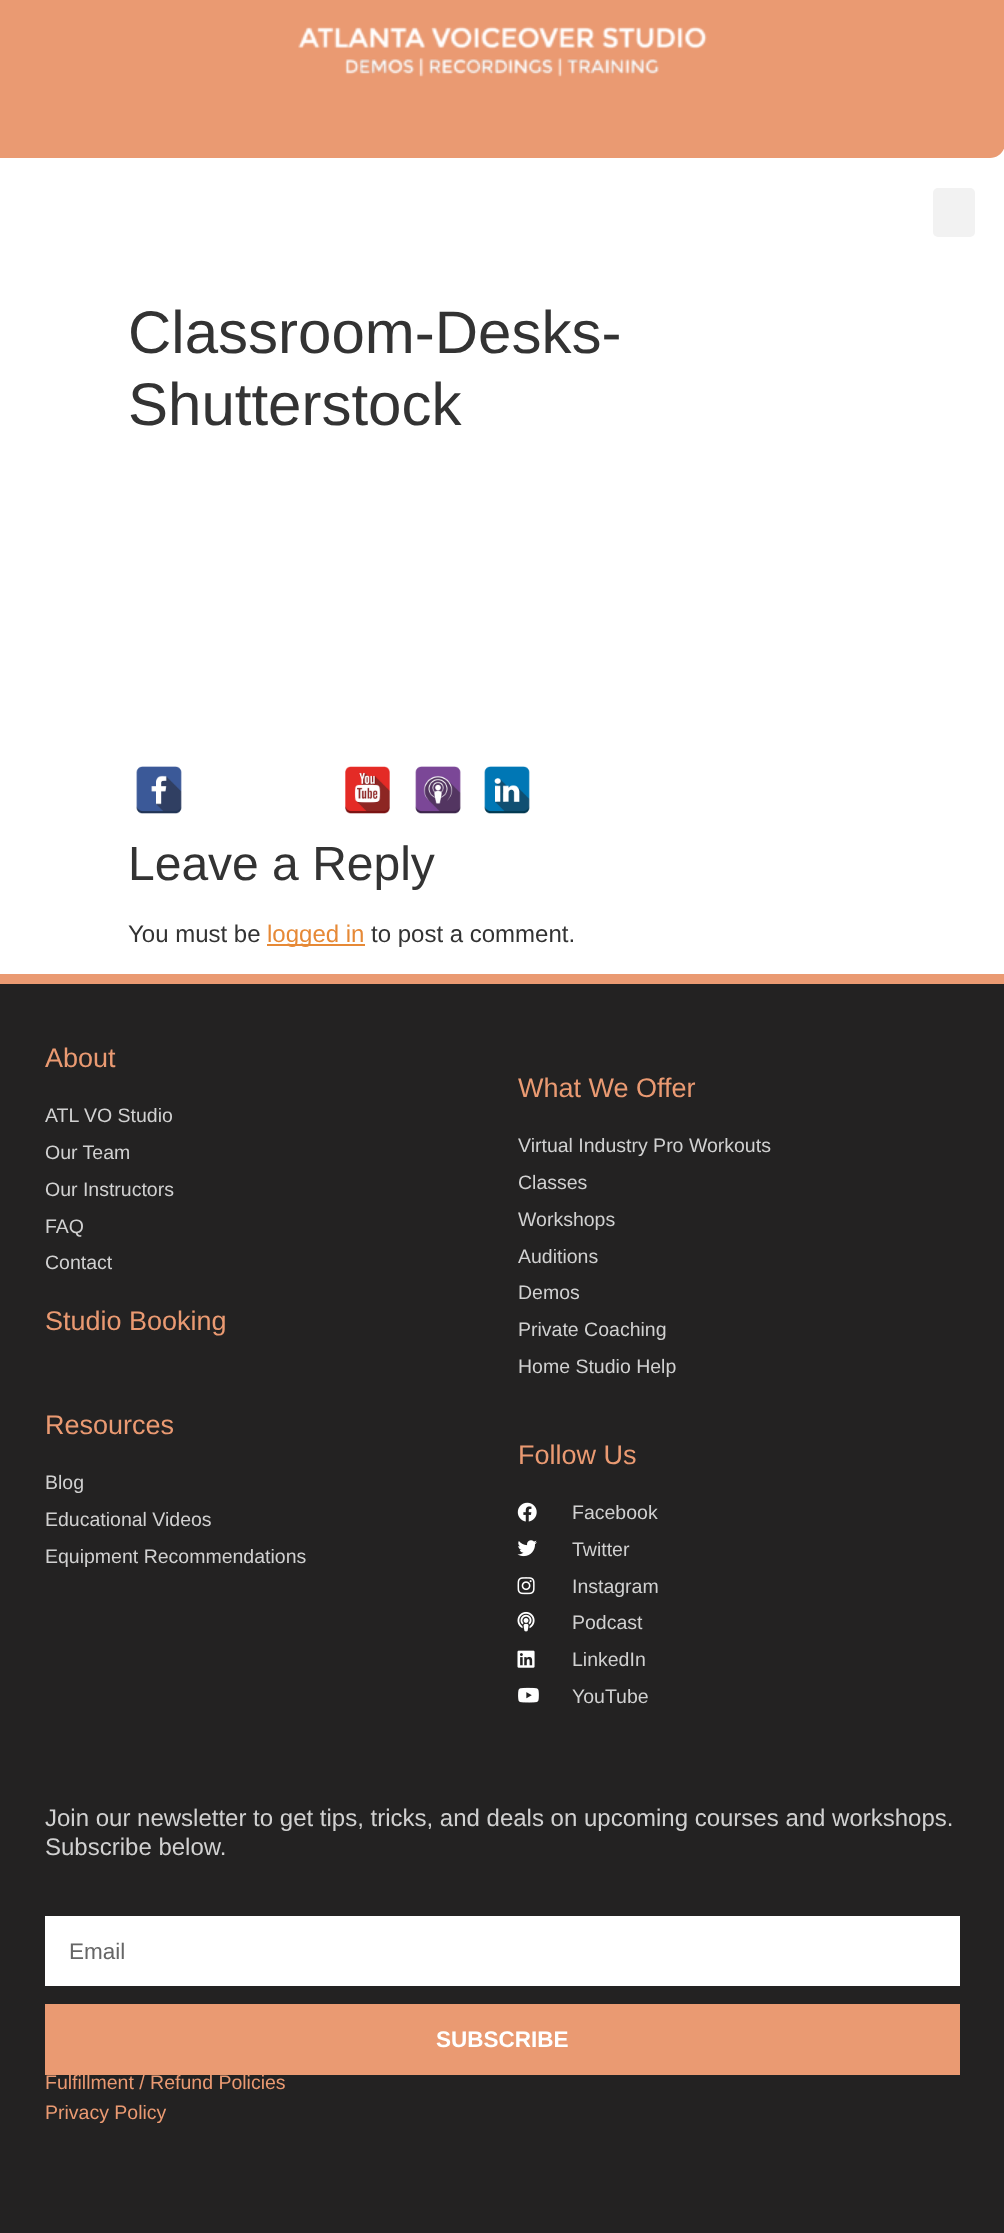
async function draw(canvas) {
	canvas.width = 1004;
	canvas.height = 2233;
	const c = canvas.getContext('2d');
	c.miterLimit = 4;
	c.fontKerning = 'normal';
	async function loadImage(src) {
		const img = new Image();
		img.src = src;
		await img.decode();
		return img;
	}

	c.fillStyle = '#fff';
	c.fillRect(0, 0, 1004, 2233);
	c.fillStyle = '#ea9a72';
	c.beginPath();
	c.moveTo(0, -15);
	c.lineTo(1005, -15);
	c.lineTo(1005, 143);
	c.bezierCurveTo(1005, 151.5, 998.5, 158, 990, 158);
	c.lineTo(0, 158);
	c.closePath();
	c.fill();
	c.drawImage(await loadImage('img1.png'), 298, 26, 409, 51);
	c.fillStyle = '#f2f2f2';
	c.beginPath();
	c.roundRect(933, 188, 42, 49, 5);
	c.fill();
	c.font = '60px Liberation Sans';
	c.fillStyle = '#333';
	c.fillText('Classroom-Desks-', 128, 353);
	c.fillText('Shutterstock', 128, 425);
	c.drawImage(await loadImage('img2.png'), 136, 766, 46, 48);
	c.drawImage(await loadImage('img3.png'), 345, 766, 45, 48);
	c.drawImage(await loadImage('img4.png'), 415, 766, 46, 48);
	c.drawImage(await loadImage('img5.png'), 484, 766, 46, 48);
	c.font = '48px Liberation Sans';
	c.fillText('Leave a Reply', 128, 880);
	c.font = '24px Liberation Sans';
	c.fillText('You must be', 128, 942);
	c.fillStyle = '#e68936';
	c.fillRect(267, 944, 98, 2);
	c.fillText('logged in', 267, 942);
	c.fillStyle = '#333';
	c.fillText('to post a comment.', 371, 942);
	c.fillStyle = '#232222';
	c.fillRect(0, 984, 1004, 1249);
	c.fillStyle = '#ea9a72';
	c.fillRect(0, 974, 1004, 10);
	c.font = '27px Liberation Sans';
	c.fillText('About', 45, 1067);
	c.font = '19.5px Liberation Sans';
	c.fillStyle = '#d1d1d1';
	for (const [text, x, y] of [
		['ATL VO Studio', 45, 1122],
		['Our Team', 45, 1159],
		['Our Instructors', 45, 1196],
		['FAQ', 45, 1233],
		['Contact', 45, 1269],
	]) {
		c.fillText(text, x, y);
	}
	c.font = '27px Liberation Sans';
	c.fillStyle = '#ea9a72';
	c.fillText('Studio Booking', 45, 1330);
	c.fillText('What We Offer', 518, 1097);
	c.font = '19.5px Liberation Sans';
	c.fillStyle = '#d1d1d1';
	for (const [text, x, y] of [
		['Virtual Industry Pro Workouts', 518, 1152],
		['Classes', 518, 1189],
		['Workshops', 518, 1226],
		['Auditions', 518, 1263],
		['Demos', 518, 1299],
		['Private Coaching', 518, 1336],
		['Home Studio Help', 518, 1373],
	]) {
		c.fillText(text, x, y);
	}
	c.font = '27px Liberation Sans';
	c.fillStyle = '#ea9a72';
	c.fillText('Resources', 45, 1434);
	c.font = '19.5px Liberation Sans';
	c.fillStyle = '#d1d1d1';
	for (const [text, x, y] of [
		['Blog', 45, 1489],
		['Educational Videos', 45, 1526],
		['Equipment Recommendations', 45, 1563],
	]) {
		c.fillText(text, x, y);
	}
	c.font = '27px Liberation Sans';
	c.fillStyle = '#ea9a72';
	c.fillText('Follow Us', 518, 1464);
	c.drawImage(await loadImage('img6.png'), 517, 1502, 20, 20);
	c.font = '19.5px Liberation Sans';
	c.fillStyle = '#d1d1d1';
	c.fillText('Facebook', 572, 1519);
	c.drawImage(await loadImage('img7.png'), 517, 1540, 20, 17);
	c.fillText('Twitter', 572, 1556);
	c.drawImage(await loadImage('img8.png'), 517, 1577, 18, 18);
	c.fillText('Instagram', 572, 1593);
	c.drawImage(await loadImage('img9.png'), 517, 1611, 18, 21);
	c.fillText('Podcast', 572, 1629);
	c.drawImage(await loadImage('img10.png'), 517, 1650, 18, 18);
	c.fillText('LinkedIn', 572, 1666);
	c.drawImage(await loadImage('img11.png'), 518, 1687, 21, 16);
	c.fillText('YouTube', 572, 1703);
	c.font = '24px Liberation Sans';
	c.fillText('Join our newsletter to get tips, tricks, and deals on upcoming courses and workshops.', 45, 1826);
	c.fillText('Subscribe below.', 45, 1855);
	c.fillStyle = '#fff';
	c.fillRect(45, 1916, 915, 70);
	c.font = '22.5px Liberation Sans';
	c.fillStyle = '#666';
	c.fillText('Email', 69, 1959);
	c.fillStyle = '#ea9a72';
	c.fillRect(45, 2004, 915, 71);
	c.font = 'bold 22.5px Liberation Sans';
	c.fillStyle = '#fff';
	c.fillText('SUBSCRIBE', 436, 2047);
	c.font = '19.5px Liberation Sans';
	c.fillStyle = '#ea9a72';
	c.fillText('Fulfillment / Refund Policies', 45, 2089);
	c.fillText('Privacy Policy', 45, 2119);
}

draw(document.querySelector('canvas'));
